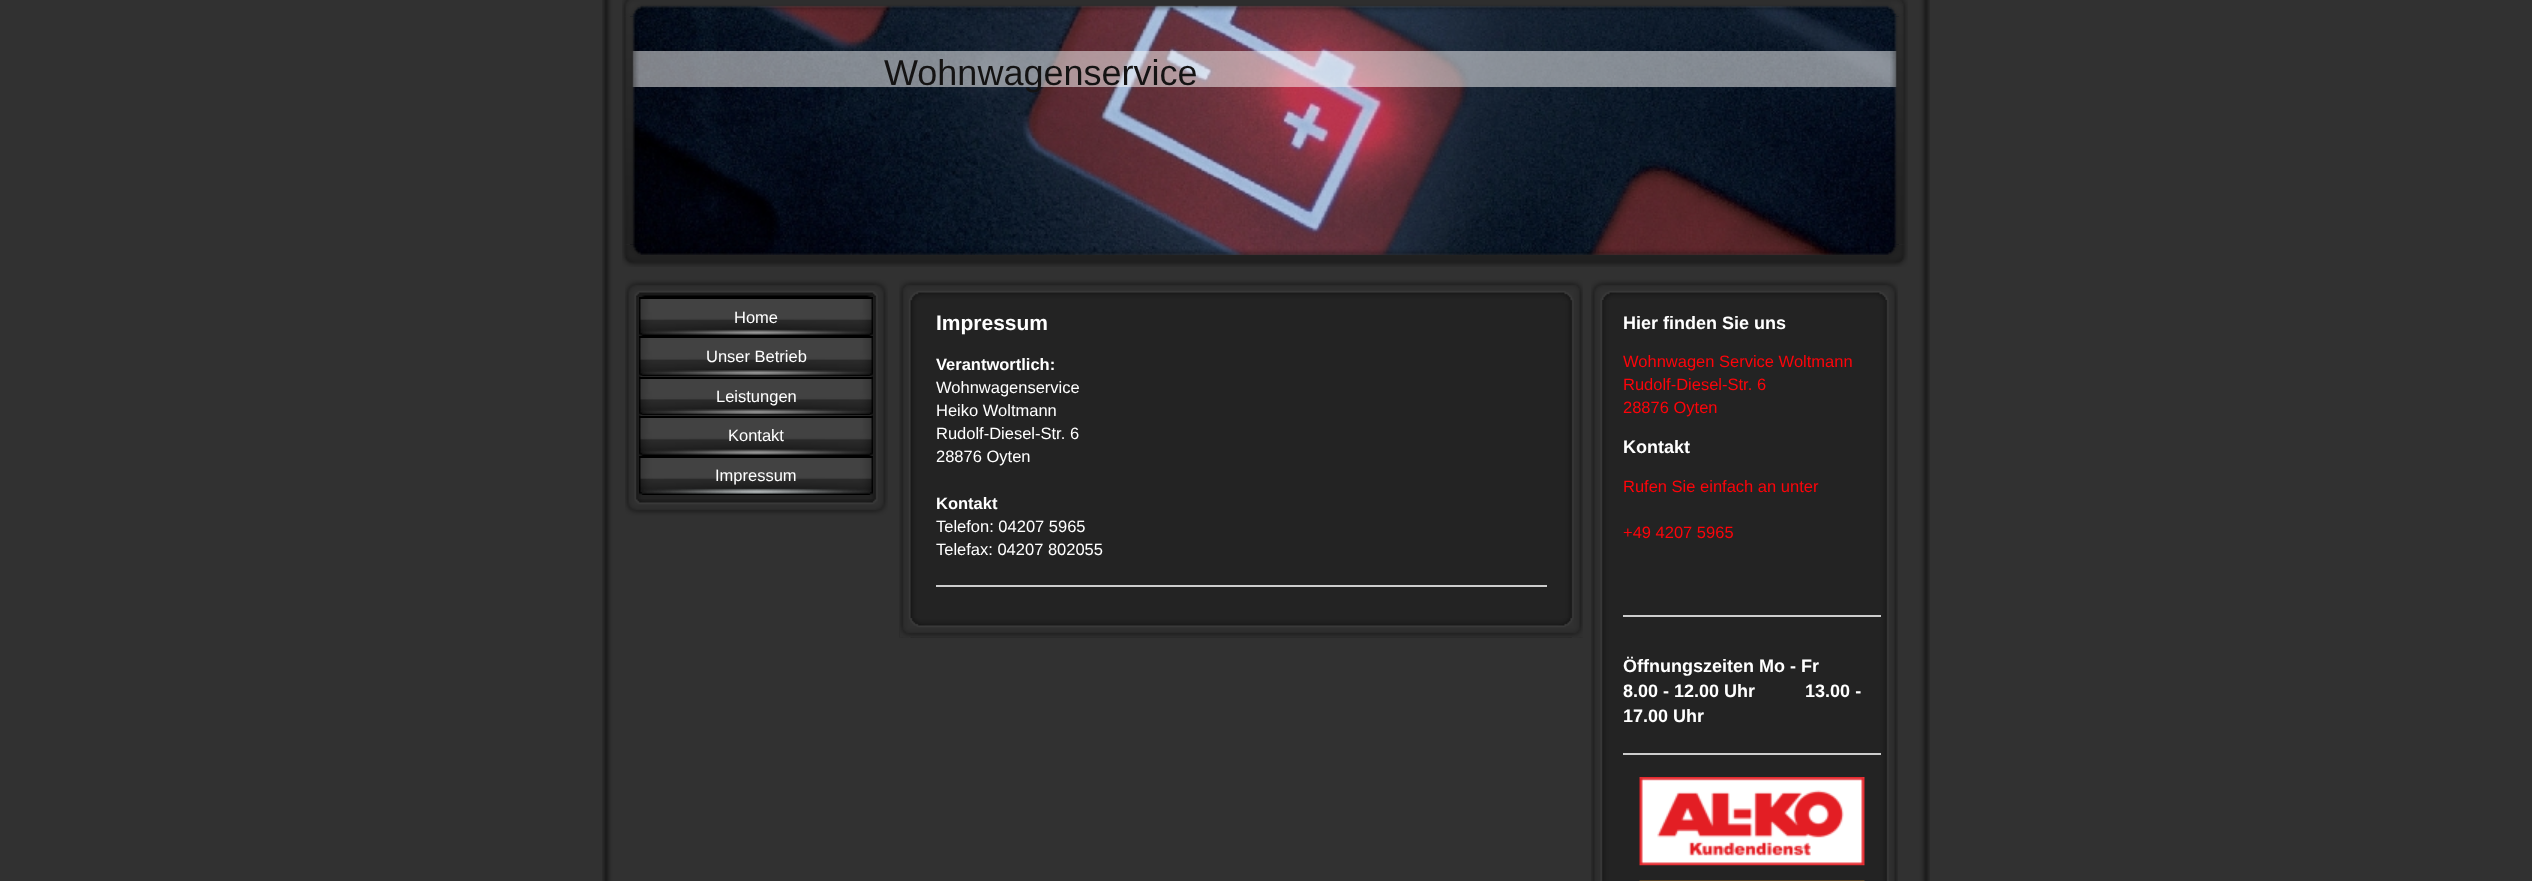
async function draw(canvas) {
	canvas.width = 2532;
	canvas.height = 881;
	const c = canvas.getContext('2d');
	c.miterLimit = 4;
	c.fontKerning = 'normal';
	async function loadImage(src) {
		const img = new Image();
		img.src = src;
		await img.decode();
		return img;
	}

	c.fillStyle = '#313131';
	c.fillRect(0, 0, 2532, 881);
	c.drawImage(await loadImage('img1.png'), 602, 0, 1328, 881);
	c.drawImage(await loadImage('img4.png'), 630, 5, 1269, 250);
	c.fillStyle = '#ffffff80';
	c.fillRect(632, 51, 1265, 36);
	c.drawImage(await loadImage('img3.png'), 622, 16, 17, 229);
	c.drawImage(await loadImage('img6.png'), 622, 244, 1286, 23);
	c.drawImage(await loadImage('img5.png'), 1890, 16, 18, 229);
	c.drawImage(await loadImage('img2.png'), 622, 0, 1286, 17);
	c.font = '36px Liberation Sans';
	c.fillStyle = '#141313';
	c.fillText('Wohnwagenservice', 884, 85);
	c.drawImage(await loadImage('img7.png'), 625, 297, 263, 202);
	c.drawImage(await loadImage('img8.png'), 625, 279, 263, 18);
	c.drawImage(await loadImage('img9.png'), 639, 299, 234, 37);
	c.fillStyle = '#000';
	c.fillRect(639, 297, 234, 2);
	c.font = '16.5px Liberation Sans';
	c.fillStyle = '#fff';
	c.fillText('Home', 734, 323);
	c.drawImage(await loadImage('img10.png'), 639, 338, 234, 39);
	c.fillStyle = '#000';
	c.fillRect(639, 336, 234, 2);
	c.fillStyle = '#fff';
	c.fillText('Unser Betrieb', 706, 362);
	c.drawImage(await loadImage('img11.png'), 639, 376, 234, 40);
	c.fillStyle = '#000';
	c.fillRect(639, 377, 234, 2);
	c.fillStyle = '#fff';
	c.fillText('Leistungen', 716, 402);
	c.drawImage(await loadImage('img12.png'), 639, 415, 234, 41);
	c.fillStyle = '#000';
	c.fillRect(639, 416, 234, 2);
	c.fillStyle = '#fff';
	c.fillText('Kontakt', 728, 441);
	c.fillStyle = '#c4ccce';
	c.fillRect(640, 488, 232, 7);
	c.drawImage(await loadImage('img13.png'), 639, 458, 234, 37);
	c.fillStyle = '#000';
	c.fillRect(639, 456, 234, 2);
	c.fillStyle = '#fff';
	c.fillText('Impressum', 715, 481);
	c.drawImage(await loadImage('img14.png'), 625, 499, 263, 17);
	c.drawImage(await loadImage('img15.png'), 899, 301, 684, 337);
	c.drawImage(await loadImage('img16.png'), 899, 279, 684, 22);
	c.font = 'bold 21px Liberation Sans';
	c.fillText('Impressum', 936, 330);
	c.font = 'bold 16.5px Liberation Sans';
	c.fillText('Verantwortlich:', 936, 370);
	c.font = '16.5px Liberation Sans';
	for (const [text, x, y] of [
		['Wohnwagenservice', 936, 393],
		['Heiko Woltmann', 936, 416],
		['Rudolf-Diesel-Str. 6', 936, 439],
		['28876 Oyten', 936, 462],
	]) {
		c.fillText(text, x, y);
	}
	c.font = 'bold 16.5px Liberation Sans';
	c.fillText('Kontakt', 936, 509);
	c.font = '16.5px Liberation Sans';
	c.fillText('Telefon: 04207 5965', 936, 532);
	c.fillText('Telefax: 04207 802055', 936, 555);
	c.fillStyle = '#ccc';
	c.fillRect(936, 585, 611, 2);
	c.drawImage(await loadImage('img17.png'), 900, 618, 683, 20);
	c.drawImage(await loadImage('img18.png'), 1591, 300, 307, 581);
	c.drawImage(await loadImage('img19.png'), 1591, 279, 307, 21);
	c.font = 'bold 18px Liberation Sans';
	c.fillStyle = '#fff';
	c.fillText('Hier finden Sie uns', 1623, 329);
	c.font = '16.5px Liberation Sans';
	c.fillStyle = '#fd040a';
	for (const [text, x, y] of [
		['Wohnwagen Service Woltmann', 1623, 367],
		['Rudolf-Diesel-Str. 6', 1623, 390],
		['28876 Oyten', 1623, 413],
	]) {
		c.fillText(text, x, y);
	}
	c.font = 'bold 18px Liberation Sans';
	c.fillStyle = '#fff';
	c.fillText('Kontakt', 1623, 453);
	c.font = '16.5px Liberation Sans';
	c.fillStyle = '#fd040a';
	c.fillText('Rufen Sie einfach an unter', 1623, 492);
	c.fillText('+49 4207 5965', 1623, 538);
	c.fillStyle = '#ccc';
	c.fillRect(1623, 615, 258, 2);
	c.font = 'bold 18px Liberation Sans';
	c.fillStyle = '#fff';
	for (const [text, x, y] of [
		['Öffnungszeiten Mo - Fr', 1623, 672],
		['8.00 - 12.00 Uhr          13.00 -', 1623, 697],
		['17.00 Uhr', 1623, 722],
	]) {
		c.fillText(text, x, y);
	}
	c.fillStyle = '#ccc';
	c.fillRect(1623, 753, 258, 2);
	c.drawImage(await loadImage('img20.png'), 1639, 777, 226, 89);
	c.drawImage(await loadImage('img21.png'), 1639, 880, 226, 1);
}

draw(document.querySelector('canvas'));
